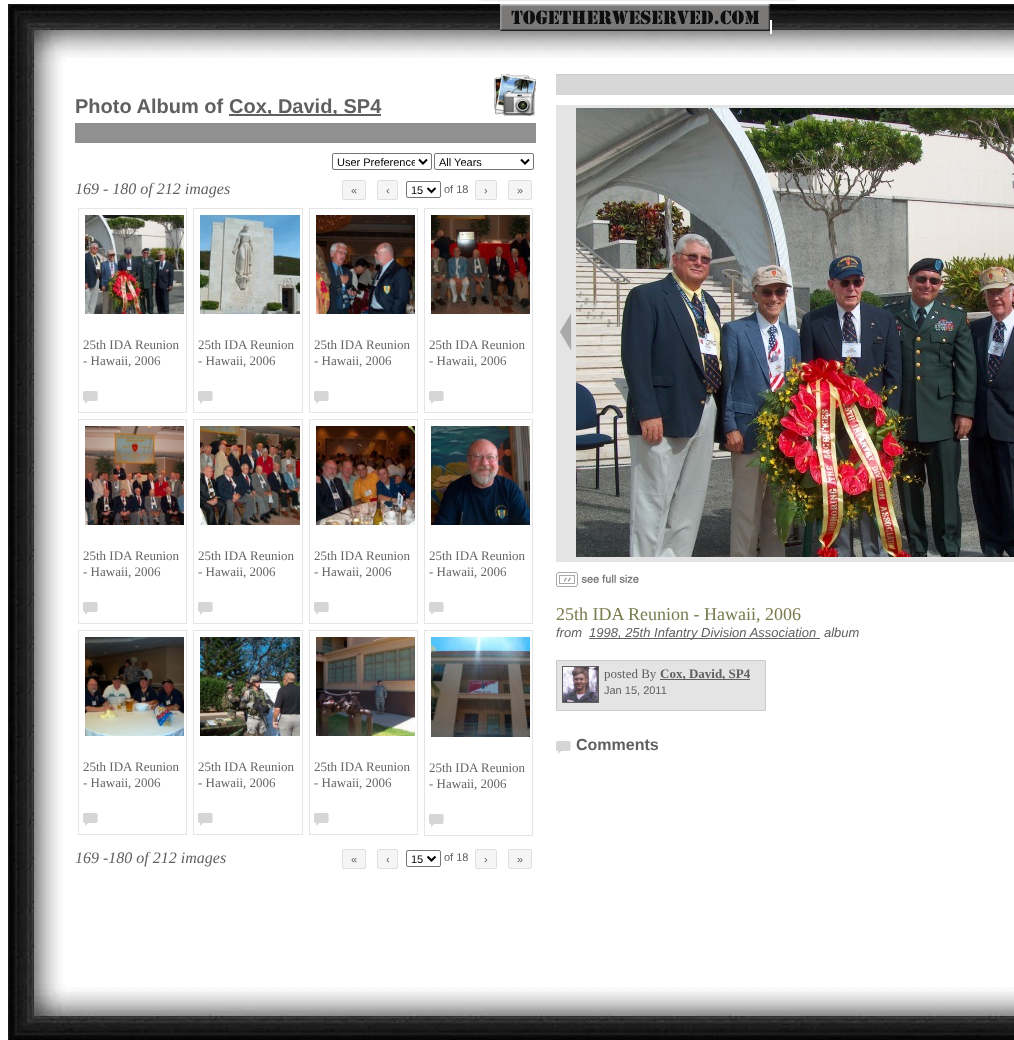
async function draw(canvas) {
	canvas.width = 1014;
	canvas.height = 1040;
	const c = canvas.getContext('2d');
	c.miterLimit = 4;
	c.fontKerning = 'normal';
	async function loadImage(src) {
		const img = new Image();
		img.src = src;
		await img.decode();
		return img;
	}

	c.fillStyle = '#fff';
	c.fillRect(0, 0, 1014, 1040);
	c.drawImage(await loadImage('img2.png'), 66, 4, 948, 54);
	c.fillStyle = '#00000080';
	c.filter = 'blur(1.5px)';
	c.beginPath();
	c.rect(480, -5, 316, 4);
	c.fill();
	c.filter = 'none';
	c.drawImage(await loadImage('img1.png'), 8, 4, 58, 58);
	c.drawImage(await loadImage('img3.png'), 500, 4, 270, 27);
	c.fillStyle = '#fff';
	c.fillRect(770, 20, 2, 14);
	c.drawImage(await loadImage('img4.png'), 8, 62, 55, 922);
	c.font = 'bold 20px Liberation Sans';
	c.fillStyle = '#606060';
	c.fillText('Photo Album of', 75, 113);
	c.fillRect(229, 114, 152, 2);
	c.fillText('Cox, David, SP4', 229, 113);
	c.drawImage(await loadImage('img5.png'), 494, 74, 42, 42);
	c.fillStyle = '#909090';
	c.fillRect(75, 123, 461, 20);
	c.beginPath();
	c.roundRect(332.5, 153.5, 99, 16, 1.5);
	c.strokeStyle = '#767676';
	c.stroke();
	c.beginPath();
	c.moveTo(419, 159.5);
	c.lineTo(423, 163.5);
	c.lineTo(427, 159.5);
	c.strokeStyle = '#000';
	c.lineWidth = 2;
	c.stroke();
	c.save();
	c.beginPath();
	c.rect(337, 155, 78, 14);
	c.clip();
	c.font = '11px Liberation Sans';
	c.fillStyle = '#000';
	c.fillText('User Preference', 337, 166);
	c.restore();
	c.beginPath();
	c.roundRect(434.5, 153.5, 99, 16, 1.5);
	c.strokeStyle = '#767676';
	c.lineWidth = 1;
	c.stroke();
	c.beginPath();
	c.moveTo(521, 159.5);
	c.lineTo(525, 163.5);
	c.lineTo(529, 159.5);
	c.strokeStyle = '#000';
	c.lineWidth = 2;
	c.stroke();
	c.font = '11px Liberation Sans';
	c.fillStyle = '#000';
	c.fillText('All Years', 439, 166);
	c.font = 'italic 16px Liberation Serif';
	c.fillStyle = '#606060';
	c.fillText('169 - 180 of 212 images', 75, 194);
	c.fillStyle = '#f5f5f5';
	c.beginPath();
	c.roundRect(342.5, 180.5, 23, 19, 1.5);
	c.fill();
	c.strokeStyle = '#dfdfdf';
	c.lineWidth = 1;
	c.stroke();
	c.font = '11px Liberation Sans';
	c.fillStyle = '#606060';
	c.fillText('«', 351, 194);
	c.fillStyle = '#f5f5f5';
	c.beginPath();
	c.roundRect(377.5, 180.5, 20, 19, 1.5);
	c.fill();
	c.stroke();
	c.fillStyle = '#606060';
	c.fillText('‹', 386, 194);
	c.beginPath();
	c.roundRect(406.5, 181.5, 34, 16, 1.5);
	c.strokeStyle = '#767676';
	c.stroke();
	c.beginPath();
	c.moveTo(427.5, 188);
	c.lineTo(431.5, 192);
	c.lineTo(435.5, 188);
	c.strokeStyle = '#000';
	c.lineWidth = 2;
	c.stroke();
	c.fillStyle = '#000';
	c.fillText('15', 411, 194);
	c.fillStyle = '#606060';
	c.fillText('of 18', 444, 193);
	c.fillStyle = '#f5f5f5';
	c.beginPath();
	c.roundRect(475.5, 180.5, 21, 19, 1.5);
	c.fill();
	c.strokeStyle = '#dfdfdf';
	c.lineWidth = 1;
	c.stroke();
	c.fillStyle = '#606060';
	c.fillText('›', 484, 194);
	c.fillStyle = '#f5f5f5';
	c.beginPath();
	c.roundRect(508.5, 180.5, 23, 19, 1.5);
	c.fill();
	c.stroke();
	c.fillStyle = '#606060';
	c.fillText('»', 517, 194);
	c.strokeStyle = '#e5e5e5';
	c.strokeRect(78.5, 208.5, 108, 204);
	c.drawImage(await loadImage('img6.png'), 85, 215, 99, 99);
	c.font = '13px Liberation Serif';
	c.fillStyle = '#666';
	c.fillText('25th IDA Reunion', 83, 349);
	c.fillText('- Hawaii, 2006', 83, 365);
	c.drawImage(await loadImage('img7.png'), 83, 391, 15, 13);
	c.strokeRect(193.5, 208.5, 109, 204);
	c.drawImage(await loadImage('img8.png'), 200, 215, 100, 99);
	c.fillText('25th IDA Reunion', 198, 349);
	c.fillText('- Hawaii, 2006', 198, 365);
	c.drawImage(await loadImage('img7.png'), 198, 391, 15, 13);
	c.strokeRect(309.5, 208.5, 108, 204);
	c.drawImage(await loadImage('img9.png'), 316, 215, 99, 99);
	c.fillText('25th IDA Reunion', 314, 349);
	c.fillText('- Hawaii, 2006', 314, 365);
	c.drawImage(await loadImage('img7.png'), 314, 391, 15, 13);
	c.strokeRect(424.5, 208.5, 108, 204);
	c.drawImage(await loadImage('img10.png'), 431, 215, 99, 99);
	c.fillText('25th IDA Reunion', 429, 349);
	c.fillText('- Hawaii, 2006', 429, 365);
	c.drawImage(await loadImage('img7.png'), 429, 391, 15, 13);
	c.strokeRect(78.5, 419.5, 108, 204);
	c.drawImage(await loadImage('img11.png'), 85, 426, 99, 99);
	c.fillText('25th IDA Reunion', 83, 560);
	c.fillText('- Hawaii, 2006', 83, 576);
	c.drawImage(await loadImage('img7.png'), 83, 602, 15, 13);
	c.strokeRect(193.5, 419.5, 109, 204);
	c.drawImage(await loadImage('img12.png'), 200, 426, 100, 99);
	c.fillText('25th IDA Reunion', 198, 560);
	c.fillText('- Hawaii, 2006', 198, 576);
	c.drawImage(await loadImage('img7.png'), 198, 602, 15, 13);
	c.strokeRect(309.5, 419.5, 108, 204);
	c.drawImage(await loadImage('img13.png'), 316, 426, 99, 99);
	c.fillText('25th IDA Reunion', 314, 560);
	c.fillText('- Hawaii, 2006', 314, 576);
	c.drawImage(await loadImage('img7.png'), 314, 602, 15, 13);
	c.strokeRect(424.5, 419.5, 108, 204);
	c.drawImage(await loadImage('img14.png'), 431, 426, 99, 99);
	c.fillText('25th IDA Reunion', 429, 560);
	c.fillText('- Hawaii, 2006', 429, 576);
	c.drawImage(await loadImage('img7.png'), 429, 602, 15, 13);
	c.strokeRect(78.5, 630.5, 108, 204);
	c.drawImage(await loadImage('img15.png'), 85, 637, 99, 99);
	c.fillText('25th IDA Reunion', 83, 771);
	c.fillText('- Hawaii, 2006', 83, 787);
	c.drawImage(await loadImage('img7.png'), 83, 813, 15, 13);
	c.strokeRect(193.5, 630.5, 109, 204);
	c.drawImage(await loadImage('img16.png'), 200, 637, 100, 99);
	c.fillText('25th IDA Reunion', 198, 771);
	c.fillText('- Hawaii, 2006', 198, 787);
	c.drawImage(await loadImage('img7.png'), 198, 813, 15, 13);
	c.strokeRect(309.5, 630.5, 108, 204);
	c.drawImage(await loadImage('img17.png'), 316, 637, 99, 99);
	c.fillText('25th IDA Reunion', 314, 771);
	c.fillText('- Hawaii, 2006', 314, 787);
	c.drawImage(await loadImage('img7.png'), 314, 813, 15, 13);
	c.strokeRect(424.5, 630.5, 108, 205);
	c.drawImage(await loadImage('img18.png'), 431, 637, 99, 100);
	c.fillText('25th IDA Reunion', 429, 772);
	c.fillText('- Hawaii, 2006', 429, 788);
	c.drawImage(await loadImage('img7.png'), 429, 814, 15, 13);
	c.font = 'italic 16px Liberation Serif';
	c.fillStyle = '#606060';
	c.fillText('169 -180 of 212 images', 75, 863);
	c.fillStyle = '#f5f5f5';
	c.beginPath();
	c.roundRect(342.5, 849.5, 23, 19, 1.5);
	c.fill();
	c.strokeStyle = '#dfdfdf';
	c.stroke();
	c.font = '11px Liberation Sans';
	c.fillStyle = '#606060';
	c.fillText('«', 351, 863);
	c.fillStyle = '#f5f5f5';
	c.beginPath();
	c.roundRect(377.5, 849.5, 20, 19, 1.5);
	c.fill();
	c.stroke();
	c.fillStyle = '#606060';
	c.fillText('‹', 386, 863);
	c.beginPath();
	c.roundRect(406.5, 850.5, 34, 16, 1.5);
	c.strokeStyle = '#767676';
	c.stroke();
	c.beginPath();
	c.moveTo(427.5, 856.5);
	c.lineTo(431.5, 860.5);
	c.lineTo(435.5, 856.5);
	c.strokeStyle = '#000';
	c.lineWidth = 2;
	c.stroke();
	c.fillStyle = '#000';
	c.fillText('15', 411, 863);
	c.fillStyle = '#606060';
	c.fillText('of 18', 444, 861);
	c.fillStyle = '#f5f5f5';
	c.beginPath();
	c.roundRect(475.5, 849.5, 21, 19, 1.5);
	c.fill();
	c.strokeStyle = '#dfdfdf';
	c.lineWidth = 1;
	c.stroke();
	c.fillStyle = '#606060';
	c.fillText('›', 484, 863);
	c.fillStyle = '#f5f5f5';
	c.beginPath();
	c.roundRect(508.5, 849.5, 23, 19, 1.5);
	c.fill();
	c.stroke();
	c.fillStyle = '#606060';
	c.fillText('»', 517, 863);
	for (const [x, y, w, h, color] of [
		[556, 75, 458, 20, '#d6d7d6'],
		[556, 74, 458, 1, '#ccc'],
		[556, 105, 458, 457, '#e4e4e4'],
	]) {
		c.fillStyle = color;
		c.fillRect(x, y, w, h);
	}
	c.drawImage(await loadImage('img19.png'), 560, 314, 12, 37);
	c.drawImage(await loadImage('img20.png'), 576, 108, 438, 449);
	c.drawImage(await loadImage('img21.png'), 556, 572, 83, 15);
	c.font = '18px Liberation Serif';
	c.fillStyle = '#787a4c';
	c.fillText('25th IDA Reunion - Hawaii, 2006', 556, 620);
	c.font = 'italic 13px Liberation Sans';
	c.fillStyle = '#606060';
	c.fillText('from', 556, 637);
	c.fillRect(589, 638, 231, 1);
	c.fillText('1998, 25th Infantry Division Association', 589, 637);
	c.fillText('album', 824, 637);
	c.fillStyle = '#e4e4e4';
	c.beginPath();
	c.rect(556.5, 660.5, 209, 50);
	c.fill();
	c.strokeStyle = '#cacaca';
	c.stroke();
	c.strokeStyle = '#606060';
	c.strokeRect(562.5, 666.5, 36, 36);
	c.drawImage(await loadImage('img22.png'), 563, 667, 35, 35);
	c.font = '13px Liberation Serif';
	c.fillStyle = '#606060';
	c.fillText('posted By', 604, 678);
	c.fillRect(660, 679, 90, 1);
	c.font = 'bold 13px Liberation Serif';
	c.fillText('Cox, David, SP4', 660, 678);
	c.font = '11px Liberation Sans';
	c.fillText('Jan 15, 2011', 604, 694);
	c.drawImage(await loadImage('img7.png'), 556, 741, 15, 13);
	c.font = 'bold 16px Liberation Sans';
	c.fillText('Comments', 576, 750);
	c.drawImage(await loadImage('img23.png'), 8, 984, 58, 56);
	c.drawImage(await loadImage('img24.png'), 66, 987, 948, 53);
}

draw(document.querySelector('canvas'));
